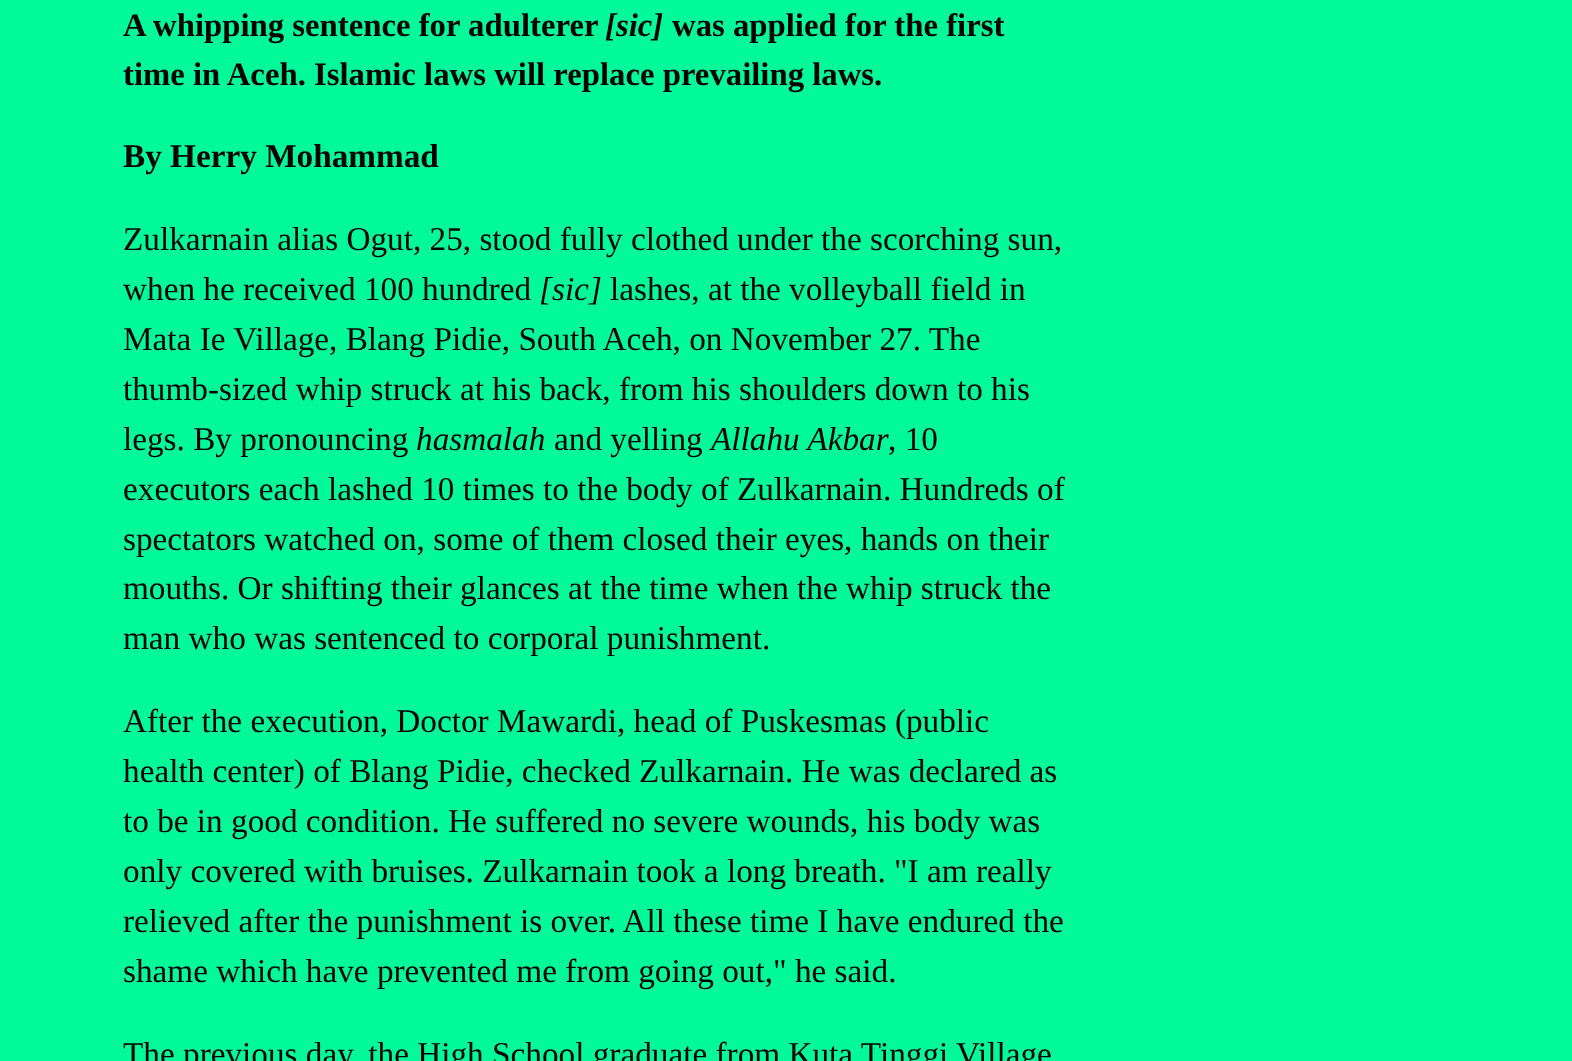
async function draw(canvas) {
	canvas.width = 1572;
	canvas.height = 1061;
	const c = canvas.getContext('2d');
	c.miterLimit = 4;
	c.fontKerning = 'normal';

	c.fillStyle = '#00fa9a';
	c.fillRect(0, 0, 1572, 1061);
	c.font = 'bold 32.75px Liberation Serif';
	c.fillStyle = '#000';
	c.fillText('A whipping sentence for adulterer', 123, 36);
	c.font = 'italic bold 32.75px Liberation Serif';
	c.fillText('[sic]', 605, 36);
	c.font = 'bold 32.75px Liberation Serif';
	c.fillText('was applied for the first', 672, 36);
	c.fillText('time in Aceh. Islamic laws will replace prevailing laws.', 123, 85);
	c.font = 'bold 33.25px Liberation Serif';
	c.fillText('By Herry Mohammad', 123, 167);
	c.font = '33.25px Liberation Serif';
	c.fillText('Zulkarnain alias Ogut, 25, stood fully clothed under the scorching sun,', 123, 250);
	c.fillText('when he received 100 hundred', 123, 300);
	c.font = 'italic 33.25px Liberation Serif';
	c.fillText('[sic]', 539, 300);
	c.font = '33.25px Liberation Serif';
	for (const [text, x, y] of [
		['lashes, at the volleyball field in', 610, 300],
		['Mata Ie Village, Blang Pidie, South Aceh, on November 27. The', 123, 350],
		['thumb-sized whip struck at his back, from his shoulders down to his', 123, 400],
		['legs. By pronouncing', 123, 450],
	]) {
		c.fillText(text, x, y);
	}
	c.font = 'italic 33.25px Liberation Serif';
	c.fillText('hasmalah', 416, 450);
	c.font = '33.25px Liberation Serif';
	c.fillText('and yelling', 554, 450);
	c.font = 'italic 33.25px Liberation Serif';
	c.fillText('Allahu Akbar', 711, 450);
	c.font = '33.25px Liberation Serif';
	for (const [text, x, y] of [
		[', 10', 888, 450],
		['executors each lashed 10 times to the body of Zulkarnain. Hundreds of', 123, 500],
		['spectators watched on, some of them closed their eyes, hands on their', 123, 550],
		['mouths. Or shifting their glances at the time when the whip struck the', 123, 599],
		['man who was sentenced to corporal punishment.', 123, 649],
		['After the execution, Doctor Mawardi, head of Puskesmas (public', 123, 732],
		['health center) of Blang Pidie, checked Zulkarnain. He was declared as', 123, 782],
		['to be in good condition. He suffered no severe wounds, his body was', 123, 832],
		['only covered with bruises. Zulkarnain took a long breath. "I am really', 123, 882],
		['relieved after the punishment is over. All these time I have endured the', 123, 932],
		['shame which have prevented me from going out," he said.', 123, 982],
		['The previous day, the High School graduate from Kuta Tinggi Village', 123, 1065],
	]) {
		c.fillText(text, x, y);
	}
}

draw(document.querySelector('canvas'));
